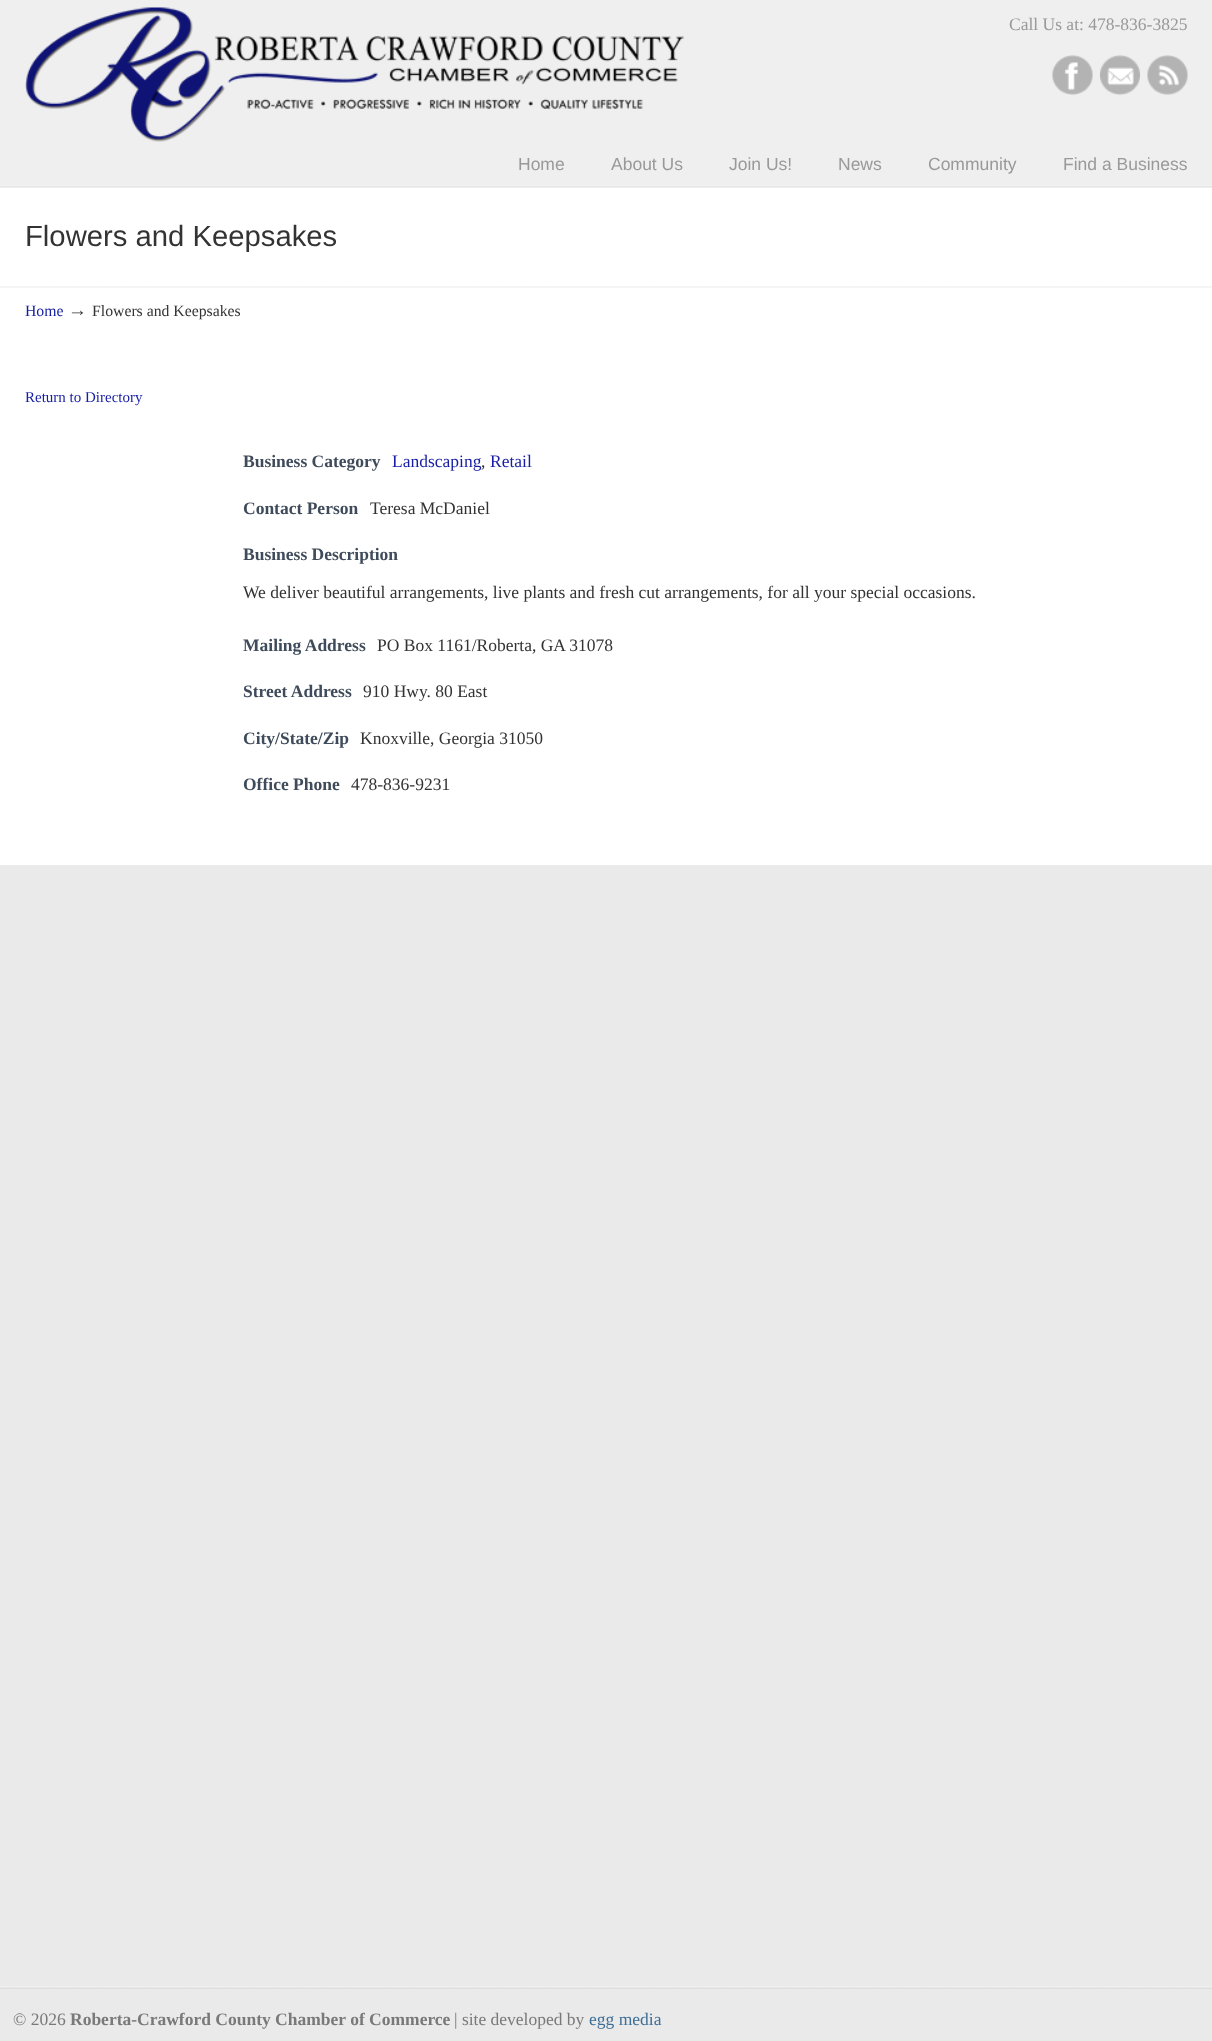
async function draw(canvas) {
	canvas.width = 1212;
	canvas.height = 2041;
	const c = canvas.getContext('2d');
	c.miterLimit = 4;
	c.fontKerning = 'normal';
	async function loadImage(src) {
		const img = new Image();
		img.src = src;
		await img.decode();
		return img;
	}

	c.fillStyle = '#eaeaea';
	c.fillRect(0, 0, 1212, 2041);
	c.fillStyle = '#efefef';
	c.fillRect(0, 0, 1212, 188);
	c.drawImage(await loadImage('img1.png'), 25, 7, 659, 135);
	c.font = '17.5px Liberation Serif';
	c.fillStyle = '#999';
	c.fillText('Call Us at: 478-836-3825', 1009, 30);
	c.drawImage(await loadImage('img2.png'), 1052, 55, 41, 40);
	c.drawImage(await loadImage('img3.png'), 1100, 55, 40, 40);
	c.drawImage(await loadImage('img4.png'), 1147, 55, 41, 40);
	c.font = '17.5px Liberation Sans';
	for (const [text, x, y] of [
		['Home', 518, 170],
		['About Us', 611, 170],
		['Join Us!', 729, 170],
		['News', 838, 170],
		['Community', 928, 170],
		['Find a Business', 1063, 170],
	]) {
		c.fillText(text, x, y);
	}
	c.drawImage(await loadImage('img5.png'), 0, 185, 1212, 2);
	c.fillStyle = '#fff';
	c.fillRect(0, 188, 1212, 677);
	c.font = '29.25px Liberation Sans';
	c.fillStyle = '#333';
	c.fillText('Flowers and Keepsakes', 25, 246);
	c.drawImage(await loadImage('img6.png'), 0, 286, 1212, 2);
	c.font = '15.75px Liberation Serif';
	c.fillStyle = '#171ea3';
	c.fillText('Home', 25, 316);
	c.font = '19px Liberation Serif';
	c.fillStyle = '#333';
	c.fillText('→', 68, 316);
	c.font = '15.75px Liberation Serif';
	c.fillText('Flowers and Keepsakes', 92, 316);
	c.font = '15px Liberation Serif';
	c.fillStyle = '#171ea3';
	c.fillText('Return to Directory', 25, 402);
	c.font = 'bold 17.5px Liberation Serif';
	c.fillStyle = '#3f4b5b';
	c.fillText('Business Category', 243, 467);
	c.font = '17.5px Liberation Serif';
	c.fillStyle = '#171ea3';
	c.fillText('Landscaping', 392, 467);
	c.fillStyle = '#333';
	c.fillText(',', 481, 467);
	c.fillStyle = '#171ea3';
	c.fillText('Retail', 490, 467);
	c.font = 'bold 17.5px Liberation Serif';
	c.fillStyle = '#3f4b5b';
	c.fillText('Contact Person', 243, 514);
	c.font = '17.5px Liberation Serif';
	c.fillStyle = '#333';
	c.fillText('Teresa McDaniel', 370, 514);
	c.font = 'bold 17.5px Liberation Serif';
	c.fillStyle = '#3f4b5b';
	c.fillText('Business Description', 243, 560);
	c.font = '17.5px Liberation Serif';
	c.fillStyle = '#333';
	c.fillText('We deliver beautiful arrangements, live plants and fresh cut arrangements, for all your special occasions.', 243, 598);
	c.font = 'bold 17.5px Liberation Serif';
	c.fillStyle = '#3f4b5b';
	c.fillText('Mailing Address', 243, 651);
	c.font = '17.5px Liberation Serif';
	c.fillStyle = '#333';
	c.fillText('PO Box 1161/Roberta, GA 31078', 377, 651);
	c.font = 'bold 17.5px Liberation Serif';
	c.fillStyle = '#3f4b5b';
	c.fillText('Street Address', 243, 697);
	c.font = '17.5px Liberation Serif';
	c.fillStyle = '#333';
	c.fillText('910 Hwy. 80 East', 363, 697);
	c.font = 'bold 17.5px Liberation Serif';
	c.fillStyle = '#3f4b5b';
	c.fillText('City/State/Zip', 243, 744);
	c.font = '17.5px Liberation Serif';
	c.fillStyle = '#333';
	c.fillText('Knoxville, Georgia 31050', 360, 744);
	c.font = 'bold 17.5px Liberation Serif';
	c.fillStyle = '#3f4b5b';
	c.fillText('Office Phone', 243, 790);
	c.font = '17.5px Liberation Serif';
	c.fillStyle = '#333';
	c.fillText('478-836-9231', 351, 790);
	c.drawImage(await loadImage('img7.png'), 0, 1986, 1212, 3);
	c.fillStyle = '#797979';
	c.fillText('© 2026', 13, 2025);
	c.font = 'bold 17.5px Liberation Serif';
	c.fillText('Roberta-Crawford County Chamber of Commerce', 70, 2025);
	c.font = '17.5px Liberation Serif';
	c.fillText('| site developed by', 454, 2025);
	c.fillStyle = '#3d6e97';
	c.fillText('egg media', 589, 2025);
}

draw(document.querySelector('canvas'));
